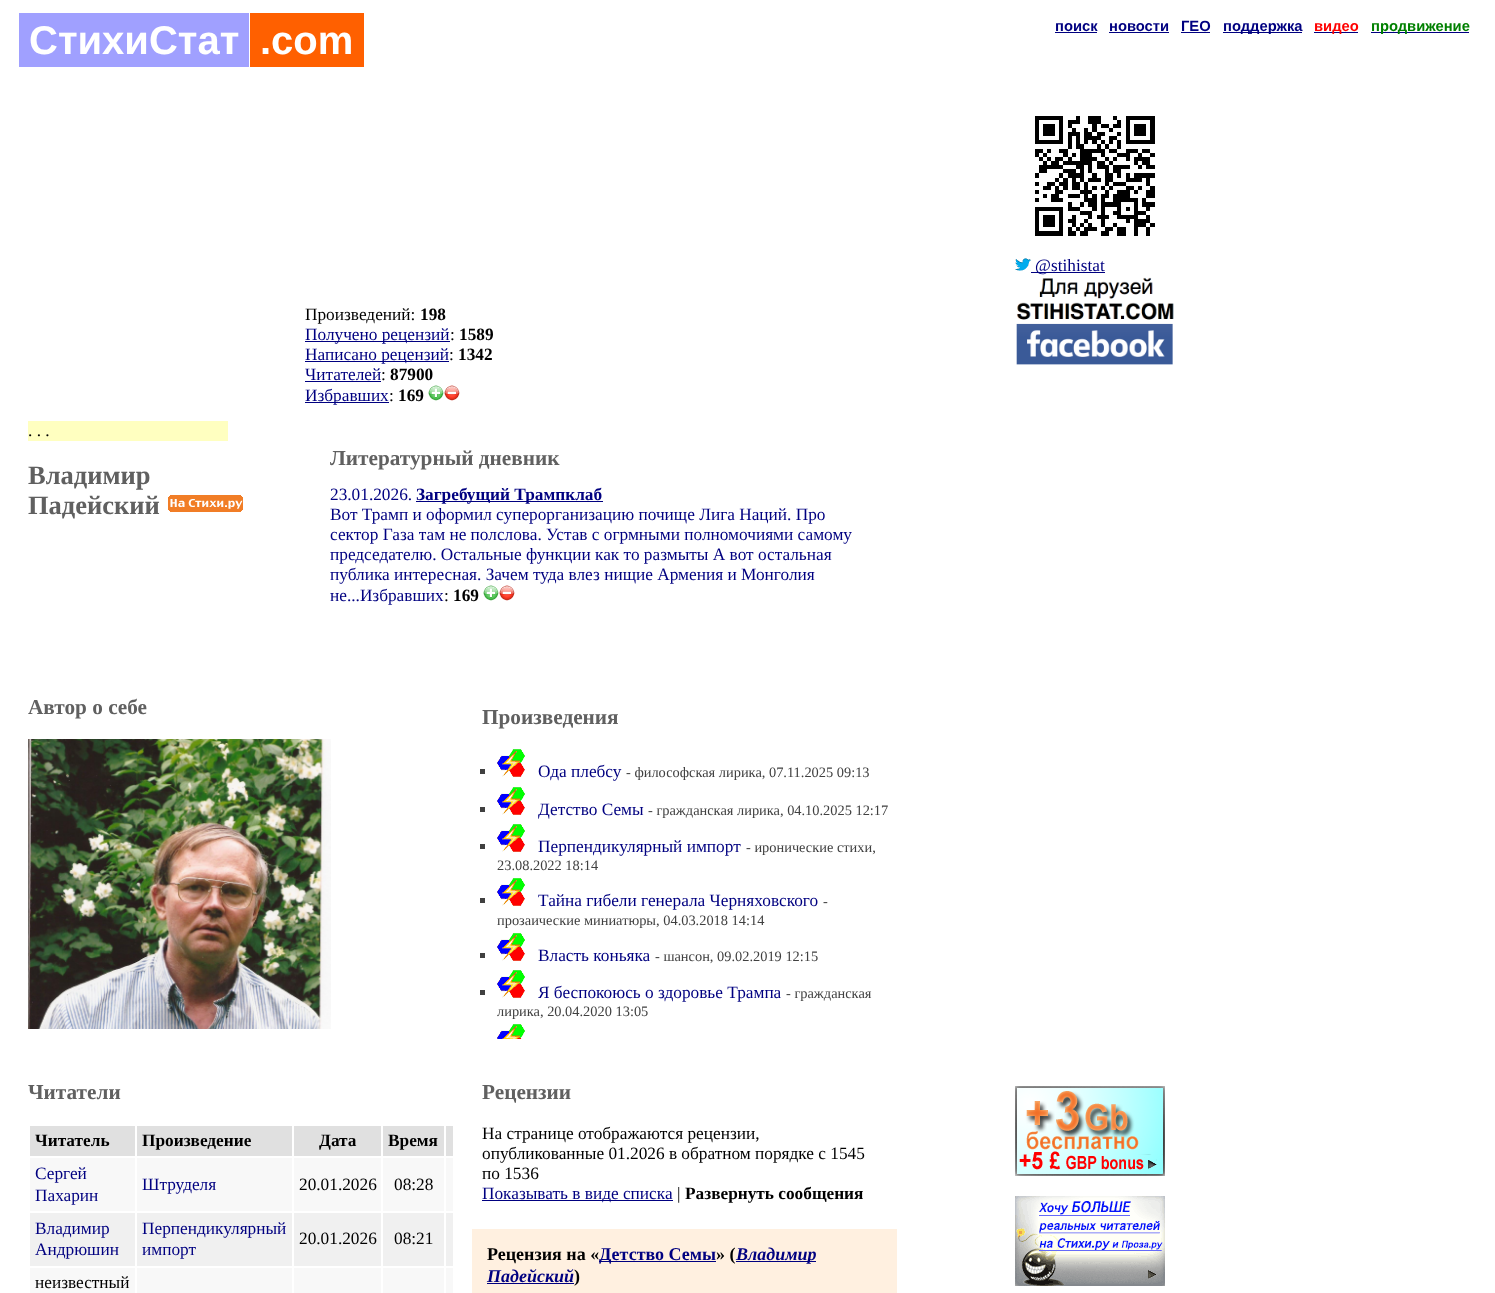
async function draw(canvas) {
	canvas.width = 1495;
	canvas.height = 1293;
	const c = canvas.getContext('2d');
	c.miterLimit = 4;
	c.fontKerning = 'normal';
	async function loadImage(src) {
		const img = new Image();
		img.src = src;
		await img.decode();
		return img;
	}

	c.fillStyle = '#fff';
	c.fillRect(0, 0, 1495, 1293);
	c.fillStyle = '#a0a0ff';
	c.fillRect(19, 13, 230, 54);
	c.font = 'bold 40px Liberation Sans';
	c.fillStyle = '#fff';
	c.fillText('СтихиСтат', 29, 54);
	c.fillStyle = '#ff6000';
	c.fillRect(250, 13, 114, 54);
	c.fillStyle = '#fff';
	c.fillText('.com', 260, 54);
	c.font = 'bold 14.75px Liberation Sans';
	c.fillStyle = '#000080';
	c.fillText('поиск', 1055, 31);
	c.fillRect(1055, 32, 42, 1);
	c.fillText('новости', 1109, 31);
	c.fillRect(1109, 32, 60, 1);
	c.fillText('ГЕО', 1181, 31);
	c.fillRect(1181, 32, 29, 1);
	c.fillRect(1223, 32, 79, 1);
	c.fillText('поддержка', 1223, 31);
	c.fillRect(1314, 32, 44, 1);
	c.fillStyle = '#f00';
	c.fillText('видео', 1314, 31);
	c.fillStyle = '#000080';
	c.fillRect(1371, 32, 98, 1);
	c.fillStyle = '#008000';
	c.fillText('продвижение', 1371, 31);
	c.drawImage(await loadImage('img1.png'), 1035, 116, 120, 120);
	c.drawImage(await loadImage('img2.png'), 1015, 258, 16, 13);
	c.fillStyle = '#000080';
	c.fillRect(1031, 272, 74, 1);
	c.font = '17.3px Liberation Serif';
	c.fillText('@stihistat', 1035, 271);
	c.drawImage(await loadImage('img3.png'), 1016, 277, 158, 88);
	c.drawImage(await loadImage('img4.png'), 1015, 1086, 150, 90);
	c.drawImage(await loadImage('img5.png'), 1015, 1196, 150, 90);
	c.fillStyle = '#ffffc0';
	c.fillRect(28, 421, 200, 20);
	c.fillStyle = '#000';
	c.fillText('. . .', 28, 436);
	c.font = 'bold 26.5px Liberation Serif';
	c.fillStyle = '#606060';
	c.fillText('Владимир', 28, 484);
	c.fillText('Падейский', 28, 514);
	c.drawImage(await loadImage('img6.png'), 168, 495, 75, 17);
	c.font = '17.3px Liberation Serif';
	c.fillStyle = '#000';
	c.fillText('Произведений:', 305, 320);
	c.font = 'bold 17.3px Liberation Serif';
	c.fillText('198', 420, 320);
	c.fillStyle = '#000080';
	c.fillRect(305, 341, 145, 1);
	c.font = '17.3px Liberation Serif';
	c.fillText('Получено рецензий', 305, 340);
	c.fillStyle = '#000';
	c.fillText(':', 450, 340);
	c.font = 'bold 17.3px Liberation Serif';
	c.fillText('1589', 459, 340);
	c.fillStyle = '#000080';
	c.fillRect(305, 361, 144, 1);
	c.font = '17.3px Liberation Serif';
	c.fillText('Написано рецензий', 305, 360);
	c.fillStyle = '#000';
	c.fillText(':', 449, 360);
	c.font = 'bold 17.3px Liberation Serif';
	c.fillText('1342', 458, 360);
	c.font = '17.3px Liberation Serif';
	c.fillStyle = '#000080';
	c.fillText('Читателей', 305, 380);
	c.fillRect(305, 381, 76, 1);
	c.fillStyle = '#000';
	c.fillText(':', 381, 380);
	c.font = 'bold 17.3px Liberation Serif';
	c.fillText('87900', 390, 380);
	c.fillStyle = '#000080';
	c.fillRect(305, 402, 84, 1);
	c.font = '17.3px Liberation Serif';
	c.fillText('Избравших', 305, 401);
	c.fillStyle = '#000';
	c.fillText(':', 389, 401);
	c.font = 'bold 17.3px Liberation Serif';
	c.fillText('169', 398, 401);
	c.drawImage(await loadImage('img7.png'), 428, 385, 16, 16);
	c.drawImage(await loadImage('img8.png'), 444, 385, 16, 16);
	c.font = 'bold 21.25px Liberation Serif';
	c.fillStyle = '#606060';
	c.fillText('Литературный дневник', 330, 465);
	c.font = '17.3px Liberation Serif';
	c.fillStyle = '#000080';
	c.fillText('23.01.2026.', 330, 500);
	c.fillRect(416, 501, 187, 1);
	c.font = 'bold 17.3px Liberation Serif';
	c.fillText('Загребущий Трампклаб', 416, 500);
	c.font = '17.3px Liberation Serif';
	for (const [text, x, y] of [
		['Вот Трамп и оформил суперорганизацию почище Лига Наций. Про', 330, 520],
		['сектор Газа там не полслова. Устав с огрмными полномочиями самому', 330, 540],
		['председателю. Остальные функции как то размыты А вот остальная', 330, 560],
		['публика интересная. Зачем туда влез нищие Армения и Монголия', 330, 580],
		['не...Избравших', 330, 601],
	]) {
		c.fillText(text, x, y);
	}
	c.fillStyle = '#000';
	c.fillText(':', 444, 601);
	c.font = 'bold 17.3px Liberation Serif';
	c.fillText('169', 453, 601);
	c.drawImage(await loadImage('img7.png'), 483, 585, 16, 16);
	c.drawImage(await loadImage('img8.png'), 499, 585, 16, 16);
	c.font = 'bold 21.25px Liberation Serif';
	c.fillStyle = '#606060';
	c.fillText('Автор о себе', 28, 714);
	c.drawImage(await loadImage('img9.png'), 28, 739, 303, 290);
	c.fillText('Произведения', 482, 724);
	c.fillStyle = '#404040';
	c.fillRect(480, 769, 5, 5);
	c.drawImage(await loadImage('img10.png'), 497, 749, 28, 28);
	c.font = '17.3px Liberation Serif';
	c.fillStyle = '#000080';
	c.fillText('Ода плебсу', 538, 777);
	c.font = '14.4px Liberation Serif';
	c.fillStyle = '#404040';
	c.fillText('- философская лирика, 07.11.2025 09:13', 626, 777);
	c.fillRect(480, 807, 5, 5);
	c.drawImage(await loadImage('img10.png'), 497, 787, 28, 28);
	c.font = '17.3px Liberation Serif';
	c.fillStyle = '#000080';
	c.fillText('Детство Семы', 538, 815);
	c.font = '14.4px Liberation Serif';
	c.fillStyle = '#404040';
	c.fillText('- гражданская лирика, 04.10.2025 12:17', 648, 815);
	c.fillRect(480, 844, 5, 5);
	c.drawImage(await loadImage('img10.png'), 497, 824, 28, 28);
	c.font = '17.3px Liberation Serif';
	c.fillStyle = '#000080';
	c.fillText('Перпендикулярный импорт', 538, 852);
	c.font = '14.4px Liberation Serif';
	c.fillStyle = '#404040';
	c.fillText('- иронические стихи,', 746, 852);
	c.fillText('23.08.2022 18:14', 497, 870);
	c.fillRect(480, 898, 5, 5);
	c.drawImage(await loadImage('img10.png'), 497, 878, 28, 28);
	c.font = '17.3px Liberation Serif';
	c.fillStyle = '#000080';
	c.fillText('Тайна гибели генерала Черняховского', 538, 906);
	c.font = '14.4px Liberation Serif';
	c.fillStyle = '#404040';
	c.fillText('-', 823, 906);
	c.fillText('прозаические миниатюры, 04.03.2018 14:14', 497, 925);
	c.fillRect(480, 953, 5, 5);
	c.drawImage(await loadImage('img10.png'), 497, 933, 28, 28);
	c.font = '17.3px Liberation Serif';
	c.fillStyle = '#000080';
	c.fillText('Власть коньяка', 538, 961);
	c.font = '14.4px Liberation Serif';
	c.fillStyle = '#404040';
	c.fillText('- шансон, 09.02.2019 12:15', 655, 961);
	c.fillRect(480, 990, 5, 5);
	c.drawImage(await loadImage('img10.png'), 497, 970, 28, 28);
	c.font = '17.3px Liberation Serif';
	c.fillStyle = '#000080';
	c.fillText('Я беспокоюсь о здоровье Трампа', 538, 998);
	c.font = '14.4px Liberation Serif';
	c.fillStyle = '#404040';
	c.fillText('- гражданская', 786, 998);
	c.fillText('лирика, 20.04.2020 13:05', 497, 1016);
	c.drawImage(await loadImage('img11.png'), 497, 1024, 28, 15);
	c.font = 'bold 21.25px Liberation Serif';
	c.fillStyle = '#606060';
	c.fillText('Читатели', 28, 1099);
	c.fillStyle = '#e0e0e0';
	c.fillRect(30, 1126, 105, 30);
	c.font = 'bold 17.3px Liberation Serif';
	c.fillStyle = '#000';
	c.fillText('Читатель', 35, 1146);
	c.fillStyle = '#e0e0e0';
	c.fillRect(137, 1126, 155, 30);
	c.fillStyle = '#000';
	c.fillText('Произведение', 142, 1146);
	c.fillStyle = '#e0e0e0';
	c.fillRect(294, 1126, 87, 30);
	c.fillStyle = '#000';
	c.fillText('Дата', 319, 1146);
	c.fillStyle = '#e0e0e0';
	c.fillRect(383, 1126, 61, 30);
	c.fillStyle = '#000';
	c.fillText('Время', 388, 1146);
	c.fillStyle = '#e0e0e0';
	c.fillRect(446, 1126, 7, 30);
	c.fillStyle = '#f8f8f8';
	c.fillRect(30, 1158, 105, 53);
	c.font = '17.3px Liberation Serif';
	c.fillStyle = '#000080';
	c.fillText('Сергей', 35, 1179);
	c.fillText('Пахарин', 35, 1201);
	c.fillStyle = '#f8f8f8';
	c.fillRect(137, 1158, 155, 53);
	c.fillStyle = '#000080';
	c.fillText('Штруделя', 142, 1190);
	c.fillStyle = '#f8f8f8';
	c.fillRect(294, 1158, 87, 53);
	c.fillStyle = '#000';
	c.fillText('20.01.2026', 299, 1190);
	c.fillStyle = '#f8f8f8';
	c.fillRect(383, 1158, 61, 53);
	c.fillStyle = '#000';
	c.fillText('08:28', 394, 1190);
	c.fillStyle = '#f8f8f8';
	c.fillRect(446, 1158, 7, 53);
	c.fillStyle = '#f0f0f0';
	c.fillRect(30, 1213, 105, 53);
	c.fillStyle = '#000080';
	c.fillText('Владимир', 35, 1234);
	c.fillText('Андрюшин', 35, 1255);
	c.fillStyle = '#f0f0f0';
	c.fillRect(137, 1213, 155, 53);
	c.fillStyle = '#000080';
	c.fillText('Перпендикулярный', 142, 1234);
	c.fillText('импорт', 142, 1255);
	c.fillStyle = '#f0f0f0';
	c.fillRect(294, 1213, 87, 53);
	c.fillStyle = '#000';
	c.fillText('20.01.2026', 299, 1244);
	c.fillStyle = '#f0f0f0';
	c.fillRect(383, 1213, 61, 53);
	c.fillStyle = '#000';
	c.fillText('08:21', 394, 1244);
	c.fillStyle = '#f0f0f0';
	c.fillRect(446, 1213, 7, 53);
	c.fillStyle = '#f8f8f8';
	c.fillRect(30, 1268, 105, 25);
	c.fillStyle = '#000';
	c.fillText('неизвестный', 35, 1288);
	for (const [x, y, w, h, color] of [
		[137, 1268, 155, 25, '#f8f8f8'],
		[294, 1268, 87, 25, '#f8f8f8'],
		[383, 1268, 61, 25, '#f8f8f8'],
		[446, 1268, 7, 25, '#f8f8f8'],
	]) {
		c.fillStyle = color;
		c.fillRect(x, y, w, h);
	}
	c.font = 'bold 21.25px Liberation Serif';
	c.fillStyle = '#606060';
	c.fillText('Рецензии', 482, 1099);
	c.font = '17.3px Liberation Serif';
	c.fillStyle = '#000';
	for (const [text, x, y] of [
		['На странице отображаются рецензии,', 482, 1139],
		['опубликованные 01.2026 в обратном порядке с 1545', 482, 1159],
		['по 1536', 482, 1179],
	]) {
		c.fillText(text, x, y);
	}
	c.fillStyle = '#000080';
	c.fillRect(482, 1200, 191, 1);
	c.fillText('Показывать в виде списка', 482, 1199);
	c.fillStyle = '#000';
	c.fillText('|', 677, 1199);
	c.font = 'bold 17.3px Liberation Serif';
	c.fillText('Развернуть сообщения', 685, 1199);
	c.fillStyle = '#fff0e0';
	c.fillRect(472, 1229, 425, 64);
	c.font = 'bold 18px Liberation Serif';
	c.fillStyle = '#000';
	c.fillText('Рецензия на «', 487, 1260);
	c.fillStyle = '#000080';
	c.fillRect(599, 1261, 117, 1);
	c.fillText('Детство Семы', 599, 1260);
	c.fillStyle = '#000';
	c.fillText('» (', 716, 1260);
	c.fillStyle = '#000080';
	c.fillRect(736, 1261, 80, 1);
	c.font = 'italic bold 18px Liberation Serif';
	c.fillText('Владимир', 736, 1260);
	c.fillText('Падейский', 487, 1282);
	c.font = 'bold 18px Liberation Serif';
	c.fillStyle = '#000';
	c.fillText(')', 574, 1282);
	c.fillStyle = '#000080';
	c.fillRect(487, 1283, 87, 1);
}

draw(document.querySelector('canvas'));
